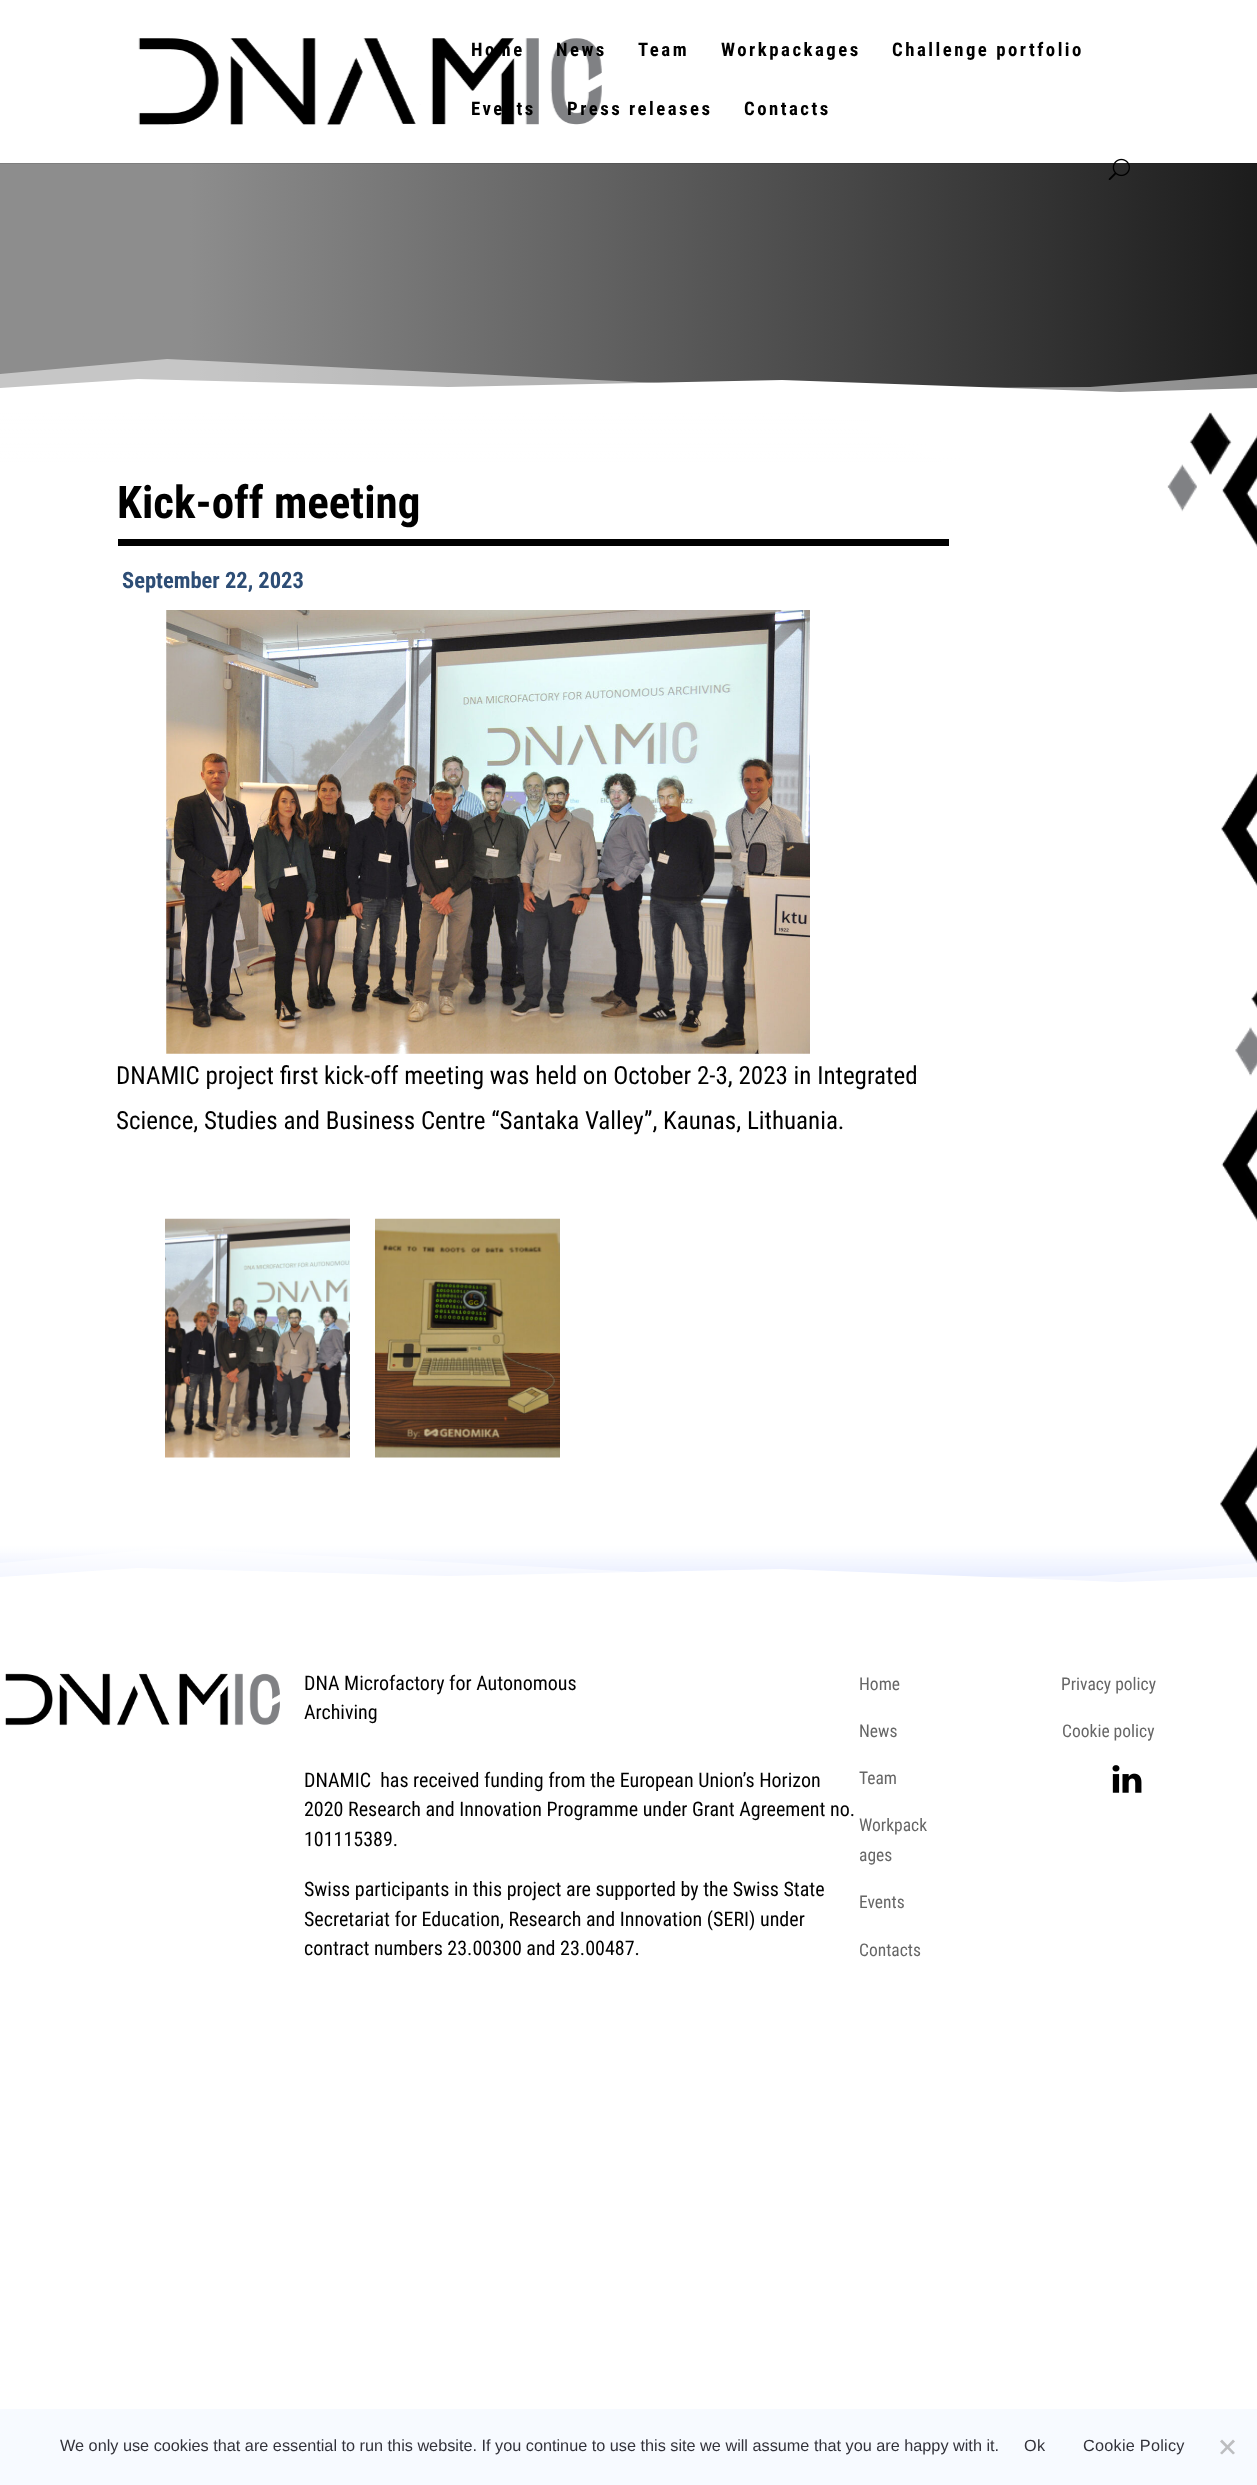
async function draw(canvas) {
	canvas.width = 1257;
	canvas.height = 2485;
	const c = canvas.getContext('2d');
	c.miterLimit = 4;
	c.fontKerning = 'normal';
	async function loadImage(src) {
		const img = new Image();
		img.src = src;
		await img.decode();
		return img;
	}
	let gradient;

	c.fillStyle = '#fff';
	c.fillRect(0, 0, 1257, 2485);
	gradient = c.createLinearGradient(0, 254, 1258, 254);
	gradient.addColorStop(0.15, '#8d8d8d');
	gradient.addColorStop(1, '#1c1c1c');
	c.fillStyle = gradient;
	c.fillRect(0, 163, 1257, 229);
	c.fillStyle = '#0000001a';
	c.beginPath();
	c.moveTo(0, 162);
	c.lineTo(0, 164);
	c.lineTo(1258, 164);
	c.lineTo(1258, 1);
	c.lineTo(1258, 162);
	c.closePath();
	c.fill();
	c.fillStyle = '#fff';
	c.fillRect(0, 162, 1257, 1);
	c.drawImage(await loadImage('img1.png'), 138, 38, 464, 87);
	c.letterSpacing = '2.5px';
	c.font = 'bold 18.75px Roboto Condensed';
	c.fillStyle = '#000';
	for (const [text, x, y] of [
		['Home', 471, 56],
		['News', 556, 56],
		['Team', 638, 56],
		['Workpackages', 721, 56],
		['Challenge portfolio', 892, 56],
		['Events', 471, 115],
		['Press releases', 567, 115],
		['Contacts', 744, 115],
	]) {
		c.fillText(text, x, y);
	}
	c.drawImage(await loadImage('img2.png'), 1108, 158, 22, 22);
	c.fillStyle = '#ffffff80';
	c.beginPath();
	c.moveTo(0, 374);
	c.lineTo(167, 359);
	c.lineTo(782, 389);
	c.lineTo(1090, 387);
	c.lineTo(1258, 374);
	c.lineTo(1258, 404);
	c.lineTo(0, 404);
	c.closePath();
	c.fill();
	c.fillStyle = '#fff';
	c.beginPath();
	c.moveTo(0, 388);
	c.lineTo(138, 379);
	c.lineTo(448, 387);
	c.lineTo(782, 380);
	c.lineTo(1120, 392);
	c.lineTo(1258, 388);
	c.lineTo(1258, 404);
	c.lineTo(0, 404);
	c.closePath();
	c.fill();
	c.drawImage(await loadImage('img3.png'), 0, 412, 1257, 1170);
	c.fillStyle = '#000';
	c.fillRect(118, 539, 831, 7);
	c.letterSpacing = '0px';
	c.font = 'bold 45px Roboto Condensed';
	c.fillText('Kick-off meeting', 117, 518);
	c.font = 'bold 22.5px Roboto Condensed';
	c.fillStyle = '#2d4d75';
	c.fillText('September 22, 2023', 122, 588);
	c.drawImage(await loadImage('img4.png'), 166, 610, 644, 444);
	c.font = '25px Roboto Condensed';
	c.fillStyle = '#000';
	c.fillText('DNAMIC project first kick-off meeting was held on October 2-3, 2023 in Integrated', 116, 1084);
	c.fillText('Science, Studies and Business Centre “Santaka Valley”, Kaunas, Lithuania.', 116, 1129);
	c.drawImage(await loadImage('img5.png'), 165, 1218, 185, 240);
	c.drawImage(await loadImage('img6.png'), 375, 1218, 185, 240);
	c.fillStyle = '#ffffff80';
	c.beginPath();
	c.moveTo(0, 1563);
	c.lineTo(167, 1548);
	c.lineTo(782, 1579);
	c.lineTo(1090, 1576);
	c.lineTo(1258, 1563);
	c.lineTo(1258, 1594);
	c.lineTo(0, 1594);
	c.closePath();
	c.fill();
	c.fillStyle = '#fff';
	c.beginPath();
	c.moveTo(0, 1577);
	c.lineTo(138, 1568);
	c.lineTo(448, 1576);
	c.lineTo(782, 1569);
	c.lineTo(1120, 1582);
	c.lineTo(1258, 1577);
	c.lineTo(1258, 1594);
	c.lineTo(0, 1594);
	c.closePath();
	c.fill();
	c.drawImage(await loadImage('img7.png'), 5, 1673, 275, 53);
	c.font = '20px Roboto Condensed';
	c.fillStyle = '#000';
	for (const [text, x, y] of [
		['DNA Microfactory for Autonomous', 304, 1690],
		['Archiving', 304, 1719],
		['DNAMIC  has received funding from the European Union’s Horizon', 304, 1787],
		['2020 Research and Innovation Programme under Grant Agreement no.', 304, 1816],
		['101115389.', 304, 1846],
		['Swiss participants in this project are supported by the Swiss State', 304, 1896],
		['Secretariat for Education, Research and Innovation (SERI) under', 304, 1926],
		['contract numbers 23.00300 and 23.00487.', 304, 1955],
	]) {
		c.fillText(text, x, y);
	}
	c.font = '17.5px Roboto Condensed';
	c.fillStyle = '#666';
	for (const [text, x, y] of [
		['Home', 859, 1690],
		['News', 859, 1737],
		['Team', 859, 1784],
		['Workpack', 859, 1831],
		['ages', 859, 1861],
		['Events', 859, 1908],
		['Contacts', 859, 1956],
		['Privacy policy', 1061, 1690],
		['Cookie policy', 1062, 1737],
	]) {
		c.fillText(text, x, y);
	}
	c.drawImage(await loadImage('img8.png'), 1112, 1765, 30, 28);
	c.fillStyle = '#f7faff';
	c.fillRect(0, 2409, 1257, 76);
	c.font = '16.25px Liberation Sans';
	c.fillStyle = '#32323a';
	c.fillText('We only use cookies that are essential to run this website. If you continue to use this site we will assume that you are happy with it.', 60, 2451);
	c.letterSpacing = '0.25px';
	c.fillText('Ok', 1024, 2451);
	c.fillText('Cookie Policy', 1083, 2451);
	c.fillStyle = '#bcbdc0';
	c.beginPath();
	c.moveTo(1233, 2439.5);
	c.lineTo(1235, 2441.5);
	c.lineTo(1222, 2454.5);
	c.lineTo(1220, 2453);
	c.closePath();
	c.fill();
	c.beginPath();
	c.moveTo(1220, 2441.5);
	c.lineTo(1222, 2439.5);
	c.lineTo(1235, 2453);
	c.lineTo(1233, 2454.5);
	c.closePath();
	c.fill();
}

draw(document.querySelector('canvas'));
